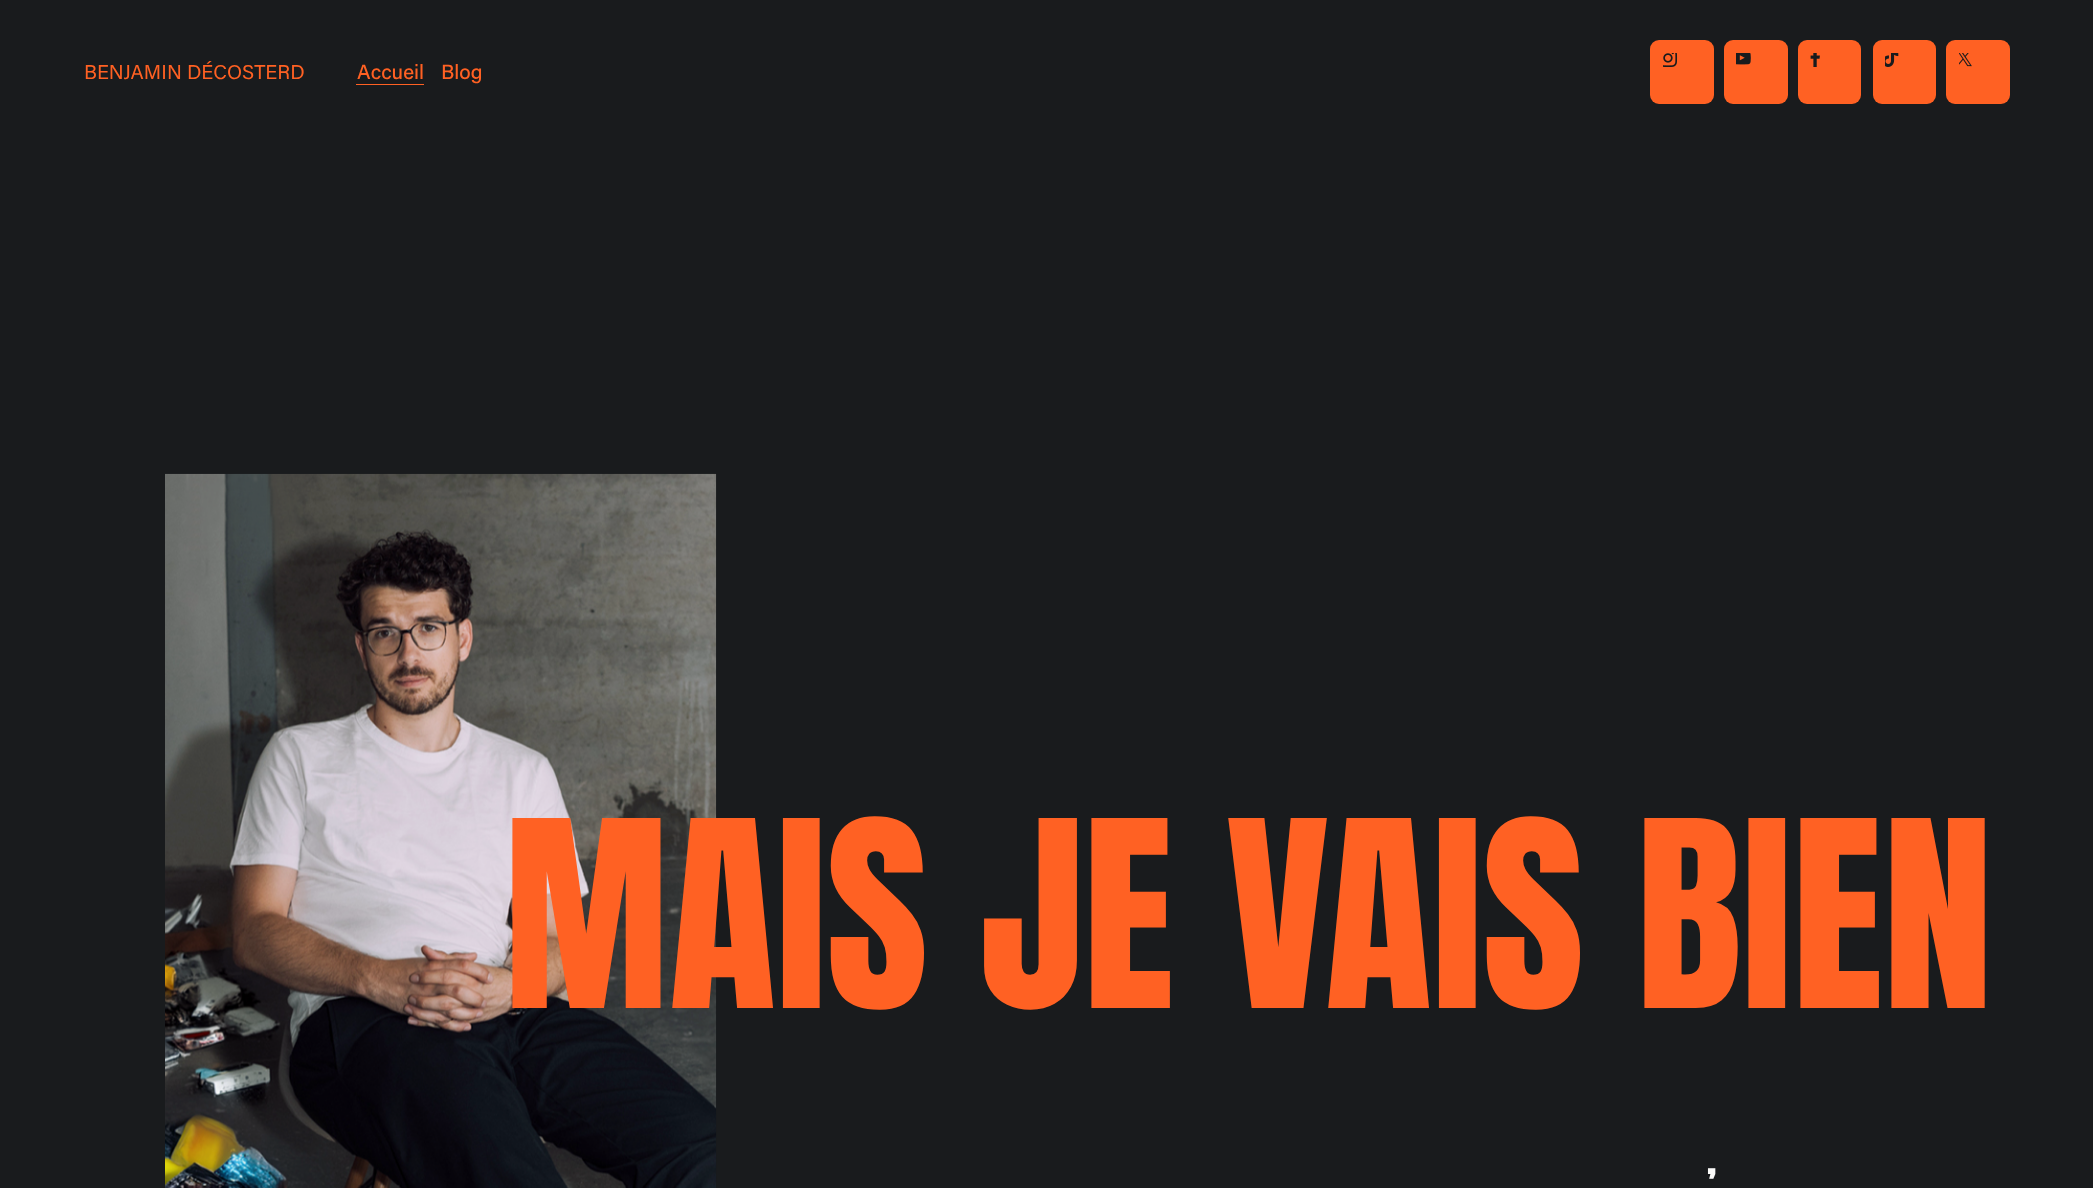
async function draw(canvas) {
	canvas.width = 2093;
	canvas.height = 1188;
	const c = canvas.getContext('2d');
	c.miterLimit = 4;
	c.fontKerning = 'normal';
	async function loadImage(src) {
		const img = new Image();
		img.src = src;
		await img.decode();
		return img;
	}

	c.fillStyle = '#191b1d';
	c.fillRect(0, 0, 2093, 1188);
	c.font = '20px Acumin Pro';
	c.fillStyle = '#ff6123';
	c.fillText('BENJAMIN DÉCOSTERD', 84, 79);
	c.fillRect(356, 84, 68, 1);
	c.font = '500 20.5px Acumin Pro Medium';
	c.fillText('Accueil', 357, 79);
	c.fillText('Blog', 441, 79);
	c.beginPath();
	c.roundRect(1650, 40, 64, 64, 9);
	c.fill();
	c.drawImage(await loadImage('img1.png'), 1663, 53, 15, 14);
	c.beginPath();
	c.roundRect(1724, 40, 64, 64, 9);
	c.fill();
	c.drawImage(await loadImage('img2.png'), 1736, 53, 15, 12);
	c.beginPath();
	c.roundRect(1798, 40, 63, 64, 9);
	c.fill();
	c.drawImage(await loadImage('img3.png'), 1810, 53, 10, 14);
	c.beginPath();
	c.roundRect(1873, 40, 63, 64, 9);
	c.fill();
	c.drawImage(await loadImage('img4.png'), 1885, 53, 14, 14);
	c.beginPath();
	c.roundRect(1946, 40, 64, 64, 9);
	c.fill();
	c.drawImage(await loadImage('img5.png'), 1959, 53, 13, 14);
	c.drawImage(await loadImage('img6.png'), 165, 473, 552, 715);
	c.font = '221px Anton';
	c.fillText('MAIS JE VAIS BIEN', 504, 1008);
	c.font = '40px Anton';
	c.fillStyle = '#fafaf9';
	c.fillText('’', 1707, 1203);
}

draw(document.querySelector('canvas'));
